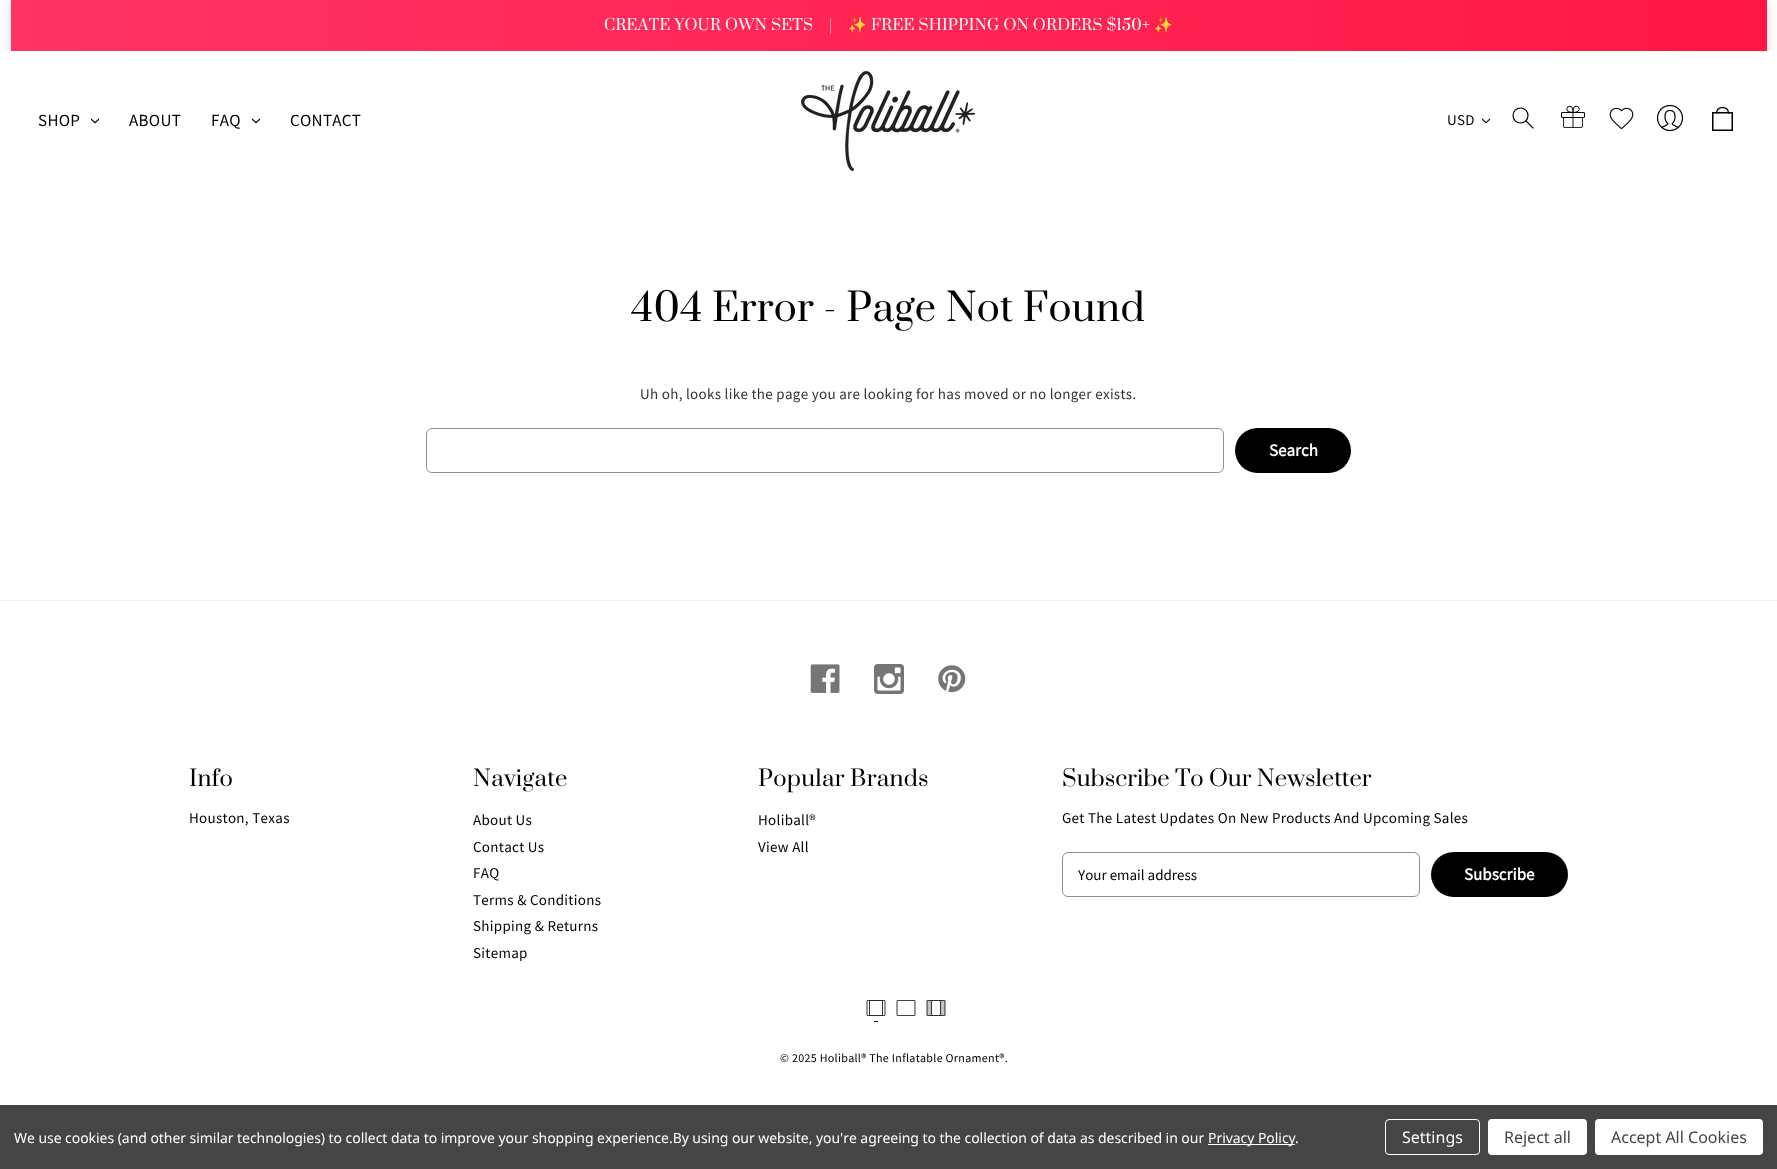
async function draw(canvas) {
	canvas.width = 1777;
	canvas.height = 1169;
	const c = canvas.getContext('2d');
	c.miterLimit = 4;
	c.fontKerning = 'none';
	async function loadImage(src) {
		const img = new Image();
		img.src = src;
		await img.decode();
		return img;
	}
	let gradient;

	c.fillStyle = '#fff';
	c.fillRect(0, 0, 1777, 1169);
	c.save();
	c.beginPath();
	c.rect(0, 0, 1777, 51);
	c.clip();
	c.fillStyle = '#00000026';
	c.filter = 'blur(6px)';
	c.beginPath();
	c.rect(11, 3, 1756, 51);
	c.fill();
	c.filter = 'none';
	c.restore();
	gradient = c.createLinearGradient(11, 102, 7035, 102);
	gradient.addColorStop(0, '#f36');
	gradient.addColorStop(0.25, '#ff1744');
	gradient.addColorStop(0.5, '#00bfa5');
	gradient.addColorStop(0.75, '#00bcd4');
	gradient.addColorStop(1, '#b2ff59');
	c.fillStyle = gradient;
	c.fillRect(11, 0, 1756, 51);
	c.letterSpacing = '0.25px';
	c.font = '15px Prata';
	c.fillStyle = '#fff';
	c.fillText('CREATE YOUR OWN SETS', 604, 30);
	c.fillStyle = '#ffdee6';
	c.fillText('|', 829, 30);
	c.font = '15px Noto Color Emoji';
	c.fillStyle = '#fff';
	c.fillText('✨', 848, 30);
	c.font = '15px Prata';
	c.fillText('FREE SHIPPING ON ORDERS $150+', 871, 30);
	c.font = '15px Noto Color Emoji';
	c.fillText('✨', 1154, 30);
	c.letterSpacing = '0.3px';
	c.font = '17px Source Sans Pro';
	c.fillStyle = '#000';
	c.fillText('SHOP', 38, 126);
	c.drawImage(await loadImage('img1.png'), 91, 118, 8, 6);
	c.fillText('ABOUT', 129, 126);
	c.fillText('FAQ', 211, 126);
	c.drawImage(await loadImage('img1.png'), 252, 118, 8, 6);
	c.fillText('CONTACT', 290, 126);
	c.drawImage(await loadImage('img2.png'), 801, 71, 174, 100);
	c.font = '15px Source Sans Pro';
	c.fillText('USD', 1447, 125);
	c.drawImage(await loadImage('img3.png'), 1482, 118, 8, 6);
	c.beginPath();
	c.moveTo(1526, 121);
	c.lineTo(1533, 128);
	c.strokeStyle = '#000';
	c.lineWidth = 1.2;
	c.lineCap = 'square';
	c.stroke();
	c.beginPath();
	c.arc(1520.5, 115.5, 7.5, 0, 2 * Math.PI);
	c.stroke();
	c.drawImage(await loadImage('img4.png'), 1561, 105, 24, 23);
	c.drawImage(await loadImage('img5.png'), 1609, 107, 25, 23);
	c.drawImage(await loadImage('img6.png'), 1656, 104, 28, 28);
	c.lineWidth = 1.5;
	c.strokeRect(1712.75, 112.75, 19.5, 17.5);
	c.beginPath();
	c.moveTo(1716.5, 113);
	c.bezierCurveTo(1716.5, 105.5, 1728.5, 105.5, 1728.5, 113);
	c.stroke();
	c.letterSpacing = '0.25px';
	c.font = '38px Prata';
	c.fillText('404 Error - Page Not Found', 631, 321);
	c.letterSpacing = '0.3px';
	c.font = '15px Source Sans Pro';
	c.fillStyle = '#333';
	c.fillText('Uh oh, looks like the page you are looking for has moved or no longer exists.', 640, 399);
	c.beginPath();
	c.roundRect(426.5, 428.5, 797, 44, 5.5);
	c.strokeStyle = '#8f8f8f';
	c.lineWidth = 1;
	c.stroke();
	c.fillStyle = '#000';
	c.beginPath();
	c.roundRect(1235, 428, 116, 45, 22.5);
	c.fill();
	c.letterSpacing = '0px';
	c.font = 'bold 17px Source Sans Pro';
	c.fillStyle = '#fff';
	c.fillText('Search', 1269, 456);
	c.fillStyle = '#f0f0f0';
	c.fillRect(0, 600, 1777, 1);
	c.drawImage(await loadImage('img7.png'), 810, 664, 30, 29);
	c.drawImage(await loadImage('img8.png'), 874, 664, 30, 30);
	c.drawImage(await loadImage('img9.png'), 938, 665, 28, 28);
	c.letterSpacing = '0.25px';
	c.font = '22px Prata';
	c.fillStyle = '#000';
	c.fillText('Info', 189, 786);
	c.letterSpacing = '0.3px';
	c.font = '15px Source Sans Pro';
	c.fillText('Houston, Texas', 189, 823);
	c.letterSpacing = '0.25px';
	c.font = '22px Prata';
	c.fillText('Navigate', 473, 786);
	c.letterSpacing = '0.3px';
	c.font = '15px Source Sans Pro';
	for (const [text, x, y] of [
		['About Us', 473, 825],
		['Contact Us', 473, 852],
		['FAQ', 473, 878],
		['Terms & Conditions', 473, 905],
		['Shipping & Returns', 473, 931],
		['Sitemap', 473, 958],
	]) {
		c.fillText(text, x, y);
	}
	c.letterSpacing = '0.25px';
	c.font = '22px Prata';
	c.fillText('Popular Brands', 758, 786);
	c.letterSpacing = '0.3px';
	c.font = '15px Source Sans Pro';
	c.fillText('Holiball®', 758, 825);
	c.fillText('View All', 758, 852);
	c.letterSpacing = '0px';
	c.font = '22px Prata';
	c.fillText('Subscribe To Our Newsletter', 1062, 786);
	c.letterSpacing = '0.3px';
	c.font = '15px Source Sans Pro';
	c.fillText('Get The Latest Updates On New Products And Upcoming Sales', 1062, 823);
	c.beginPath();
	c.roundRect(1062.5, 852.5, 357, 44, 5.5);
	c.stroke();
	c.letterSpacing = '0px';
	c.fillText('Your email address', 1078, 880);
	c.beginPath();
	c.roundRect(1431, 852, 137, 45, 22.5);
	c.fill();
	c.font = 'bold 17px Source Sans Pro';
	c.fillStyle = '#fff';
	c.fillText('Subscribe', 1464, 880);
	c.drawImage(await loadImage('img10.png'), 866, 1000, 20, 16);
	c.fillStyle = '#111';
	c.fillRect(874, 1021, 4, 1);
	c.drawImage(await loadImage('img11.png'), 896, 1000, 20, 16);
	c.drawImage(await loadImage('img12.png'), 926, 1000, 20, 16);
	c.letterSpacing = '0.3px';
	c.font = '12px Source Sans Pro';
	c.fillStyle = '#000';
	c.fillText('© 2025 Holiball® The Inflatable Ornament®.', 780, 1062);
	c.fillStyle = '#454545';
	c.fillRect(0, 1105, 1777, 64);
	c.letterSpacing = '-0.05px';
	c.font = '14px Noto Sans';
	c.fillStyle = '#fff';
	c.fillText('We use cookies (and other similar technologies) to collect data to improve your shopping experience.By using our website, you\'re agreeing to the collection of data as described in our', 14, 1143);
	c.fillRect(1208, 1144, 87, 1);
	c.fillText('Privacy Policy', 1208, 1143);
	c.fillText('.', 1295, 1143);
	c.beginPath();
	c.roundRect(1385.5, 1119.5, 94, 35, 3.5);
	c.strokeStyle = '#fff';
	c.stroke();
	c.letterSpacing = '0px';
	c.font = '16px Noto Sans';
	c.fillText('Settings', 1402, 1143);
	c.beginPath();
	c.roundRect(1488, 1119, 99, 36, 4);
	c.fill();
	c.fillStyle = '#454545';
	c.fillText('Reject all', 1504, 1143);
	c.fillStyle = '#fff';
	c.beginPath();
	c.roundRect(1595, 1119, 168, 36, 4);
	c.fill();
	c.fillStyle = '#454545';
	c.fillText('Accept All Cookies', 1611, 1143);
}

draw(document.querySelector('canvas'));
